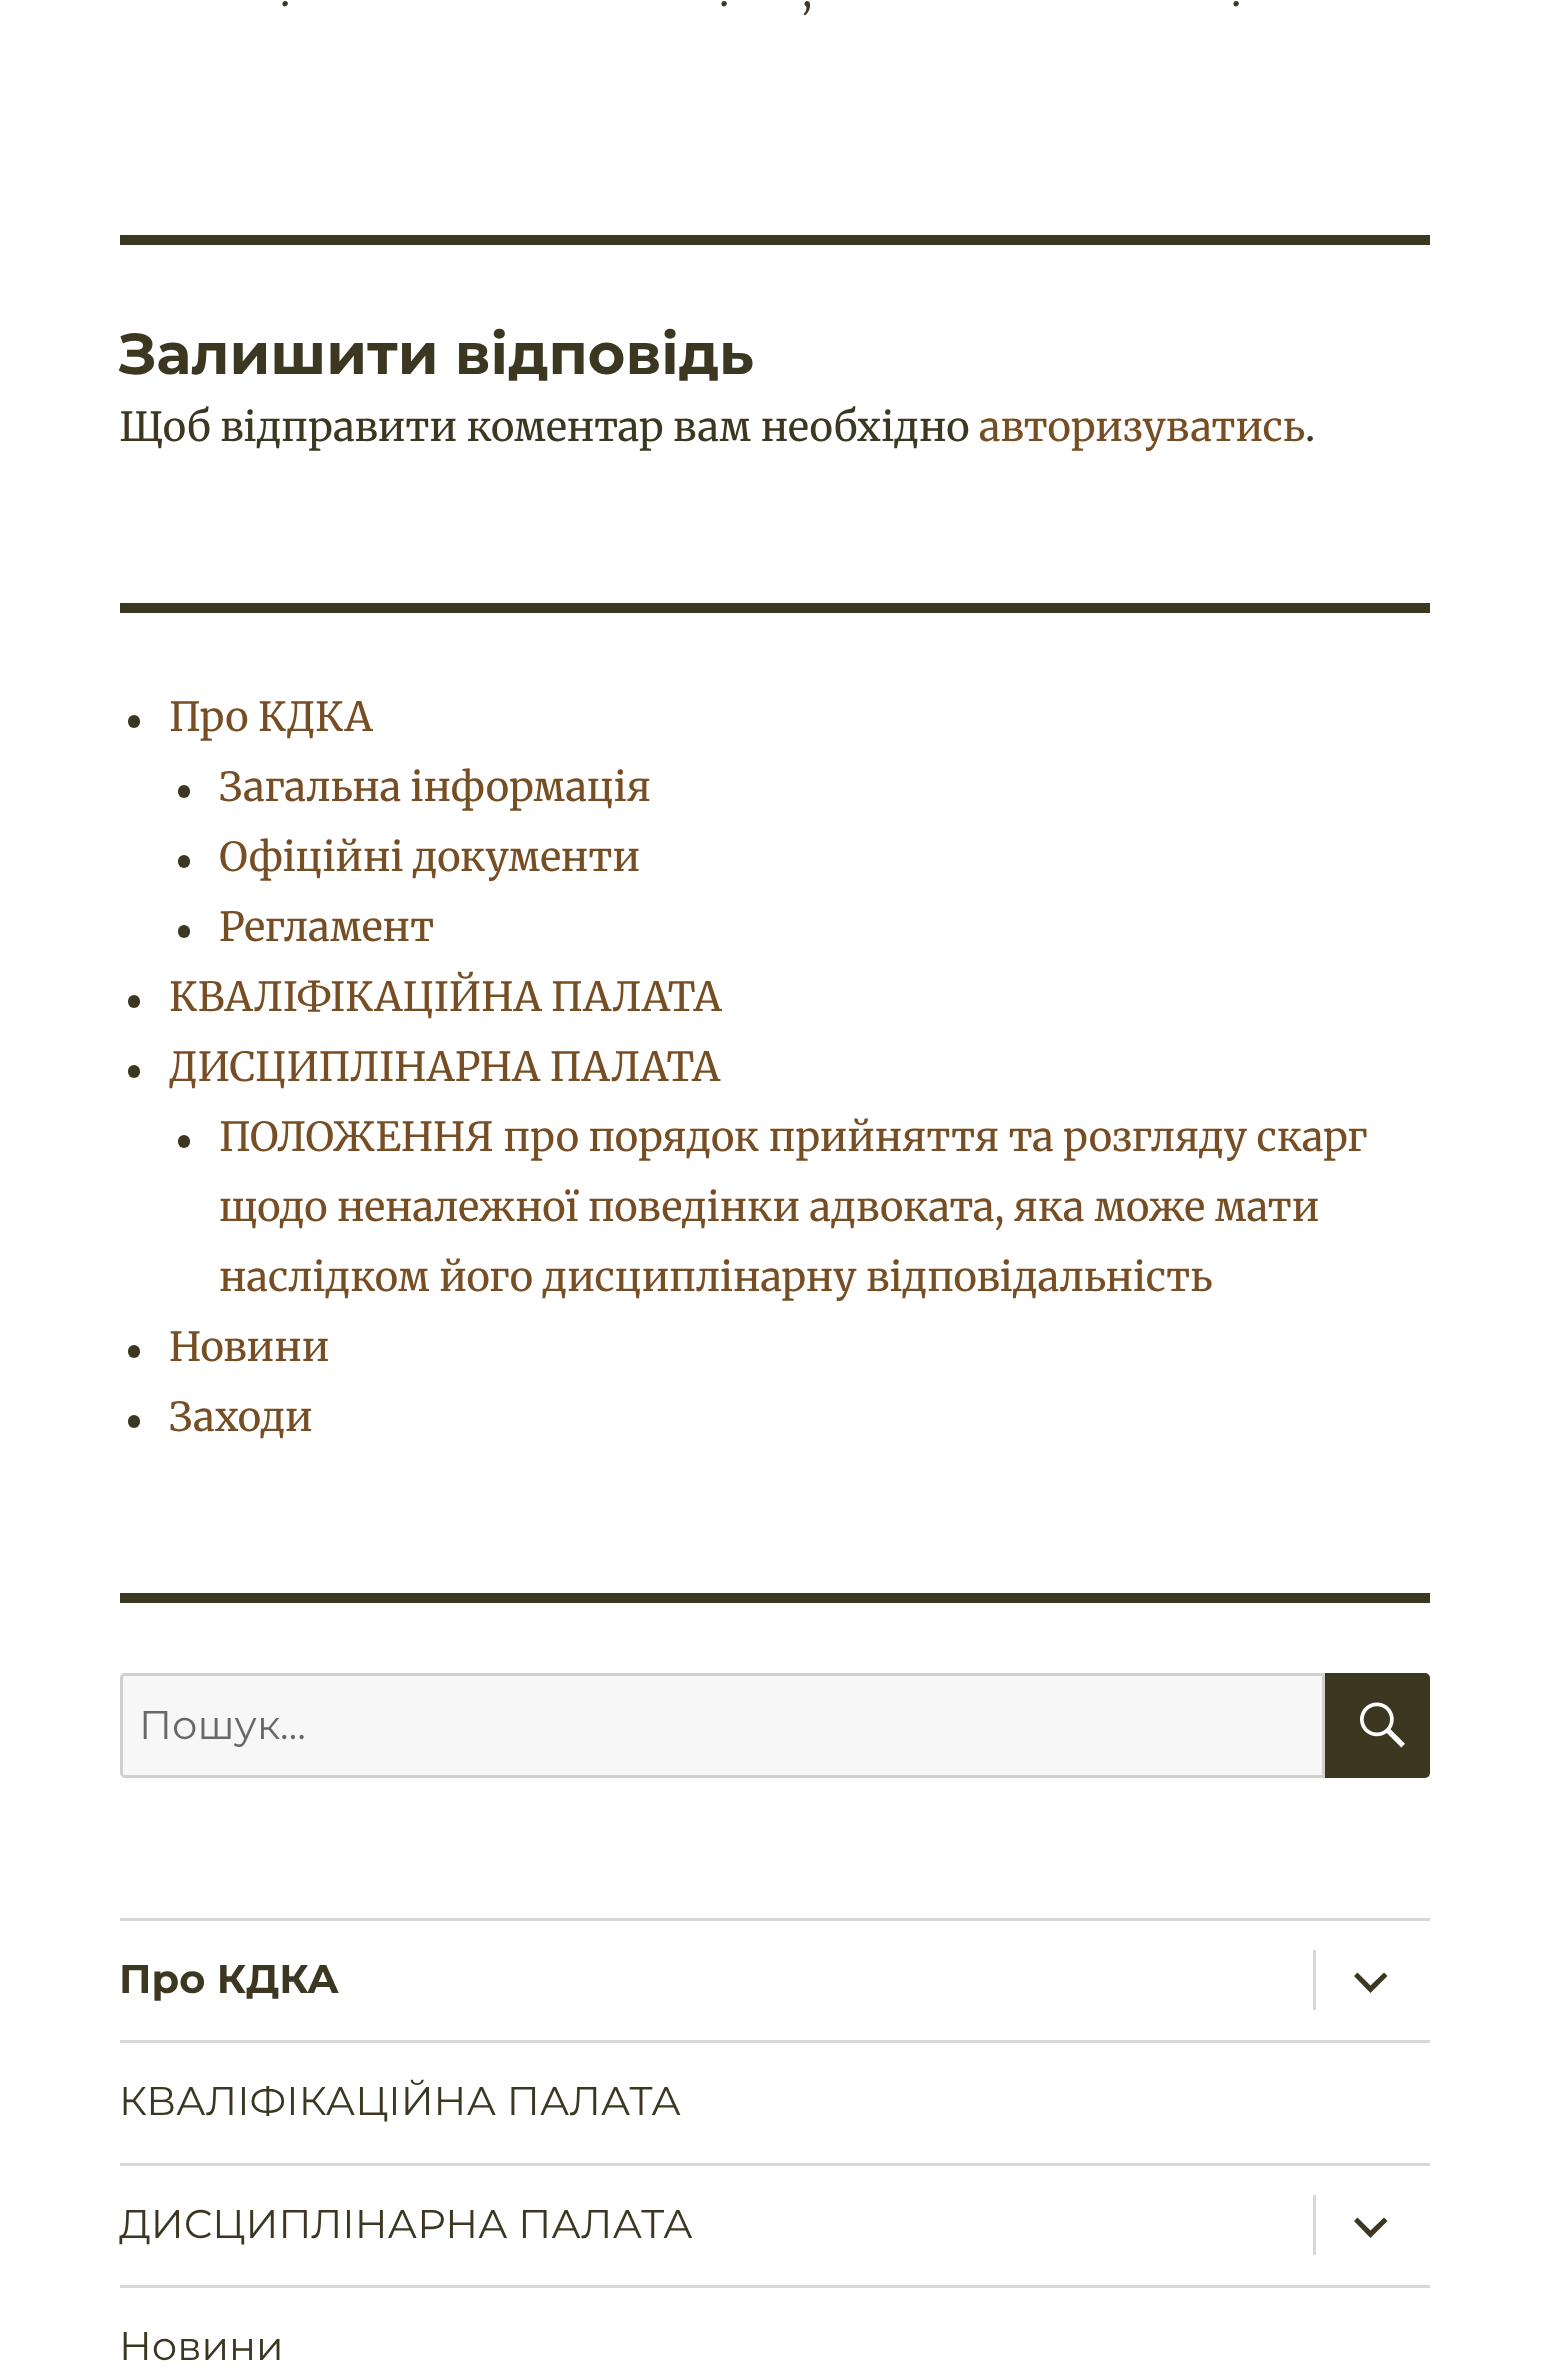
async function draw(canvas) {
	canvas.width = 1549;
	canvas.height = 2370;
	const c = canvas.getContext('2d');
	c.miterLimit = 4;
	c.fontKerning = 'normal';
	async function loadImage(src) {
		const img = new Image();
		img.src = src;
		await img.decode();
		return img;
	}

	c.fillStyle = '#fff';
	c.fillRect(0, 0, 1549, 2370);
	c.font = '40px Merriweather';
	c.fillStyle = '#3b3721';
	for (const [text, x, y] of [
		['.', 280, 6],
		['.', 719, 6],
		[',', 802, 6],
		['.', 1231, 6],
	]) {
		c.fillText(text, x, y);
	}
	c.fillRect(120, 235, 1310, 10);
	c.font = 'bold 57.5px Montserrat';
	c.fillText('Залишити відповідь', 119, 374);
	c.font = '40px Merriweather';
	c.fillText('Щоб відправити коментар вам необхідно', 119, 441);
	c.fillStyle = '#774e24';
	c.fillText('авторизуватись', 979, 441);
	c.fillStyle = '#3b3721';
	c.fillText('.', 1305, 441);
	c.fillRect(120, 603, 1310, 10);
	c.beginPath();
	c.roundRect(128, 715, 12, 13, 6);
	c.fill();
	c.fillStyle = '#774e24';
	c.fillText('Про КДКА', 169, 731);
	c.fillStyle = '#3b3721';
	c.beginPath();
	c.roundRect(178, 785, 12, 13, 6);
	c.fill();
	c.fillStyle = '#774e24';
	c.fillText('Загальна інформація', 219, 801);
	c.fillStyle = '#3b3721';
	c.beginPath();
	c.roundRect(178, 855, 12, 13, 6);
	c.fill();
	c.fillStyle = '#774e24';
	c.fillText('Офіційні документи', 219, 871);
	c.fillStyle = '#3b3721';
	c.beginPath();
	c.roundRect(178, 925, 12, 13, 6);
	c.fill();
	c.fillStyle = '#774e24';
	c.fillText('Регламент', 219, 941);
	c.fillStyle = '#3b3721';
	c.beginPath();
	c.roundRect(128, 995, 12, 13, 6);
	c.fill();
	c.fillStyle = '#774e24';
	c.fillText('КВАЛІФІКАЦІЙНА ПАЛАТА', 169, 1011);
	c.fillStyle = '#3b3721';
	c.beginPath();
	c.roundRect(128, 1065, 12, 13, 6);
	c.fill();
	c.fillStyle = '#774e24';
	c.fillText('ДИСЦИПЛІНАРНА ПАЛАТА', 169, 1081);
	c.fillStyle = '#3b3721';
	c.beginPath();
	c.roundRect(178, 1135, 12, 13, 6);
	c.fill();
	c.fillStyle = '#774e24';
	for (const [text, x, y] of [
		['ПОЛОЖЕННЯ про порядок прийняття та розгляду скарг', 219, 1151],
		['щодо неналежної поведінки адвоката, яка може мати', 219, 1221],
		['наслідком його дисциплінарну відповідальність', 219, 1291],
	]) {
		c.fillText(text, x, y);
	}
	c.fillStyle = '#3b3721';
	c.beginPath();
	c.roundRect(128, 1345, 12, 13, 6);
	c.fill();
	c.fillStyle = '#774e24';
	c.fillText('Новини', 169, 1361);
	c.fillStyle = '#3b3721';
	c.beginPath();
	c.roundRect(128, 1415, 12, 13, 6);
	c.fill();
	c.fillStyle = '#774e24';
	c.fillText('Заходи', 169, 1431);
	c.fillStyle = '#3b3721';
	c.fillRect(120, 1593, 1310, 10);
	c.fillStyle = '#f7f7f7';
	c.beginPath();
	c.roundRect(120, 1673, 1205, 105, [5, 0, 0, 5]);
	c.fill();
	c.beginPath();
	c.roundRect(121.5, 1674.5, 1202, 102, [3.5, 0, 0, 3.5]);
	c.strokeStyle = '#3b372133';
	c.lineWidth = 3;
	c.stroke();
	c.font = '40px Montserrat';
	c.fillStyle = '#686868';
	c.fillText('Пошук…', 139, 1739);
	c.fillStyle = '#3b3721';
	c.beginPath();
	c.roundRect(1325, 1673, 105, 105, [0, 5, 5, 0]);
	c.fill();
	c.drawImage(await loadImage('img1.png'), 1360, 1702, 45, 46);
	c.fillStyle = '#d8d7d3';
	c.fillRect(120, 1918, 1310, 3);
	c.font = 'bold 40px Montserrat';
	c.fillStyle = '#3b3721';
	c.fillText('Про КДКА', 119, 1993);
	c.fillStyle = '#d8d7d3';
	c.fillRect(1313, 1950, 3, 60);
	c.fillStyle = '#3b3721';
	c.beginPath();
	c.moveTo(1384, 1972.5);
	c.lineTo(1387.5, 1976);
	c.lineTo(1370.5, 1993);
	c.lineTo(1354, 1976);
	c.lineTo(1357.5, 1972.5);
	c.lineTo(1370.5, 1985.5);
	c.closePath();
	c.fill();
	c.fillStyle = '#d8d7d3';
	c.fillRect(120, 2040, 1310, 3);
	c.font = '40px Montserrat';
	c.fillStyle = '#3b3721';
	c.fillText('КВАЛІФІКАЦІЙНА ПАЛАТА', 119, 2115);
	c.fillStyle = '#d8d7d3';
	c.fillRect(120, 2163, 1310, 3);
	c.fillStyle = '#3b3721';
	c.fillText('ДИСЦИПЛІНАРНА ПАЛАТА', 119, 2238);
	c.fillStyle = '#d8d7d3';
	c.fillRect(1313, 2195, 3, 60);
	c.fillStyle = '#3b3721';
	c.beginPath();
	c.moveTo(1384, 2217.5);
	c.lineTo(1387.5, 2221);
	c.lineTo(1370.5, 2238);
	c.lineTo(1354, 2221);
	c.lineTo(1357.5, 2217.5);
	c.lineTo(1370.5, 2230.5);
	c.closePath();
	c.fill();
	c.fillStyle = '#d8d7d3';
	c.fillRect(120, 2285, 1310, 3);
	c.fillStyle = '#3b3721';
	c.fillText('Новини', 119, 2360);
}

draw(document.querySelector('canvas'));
